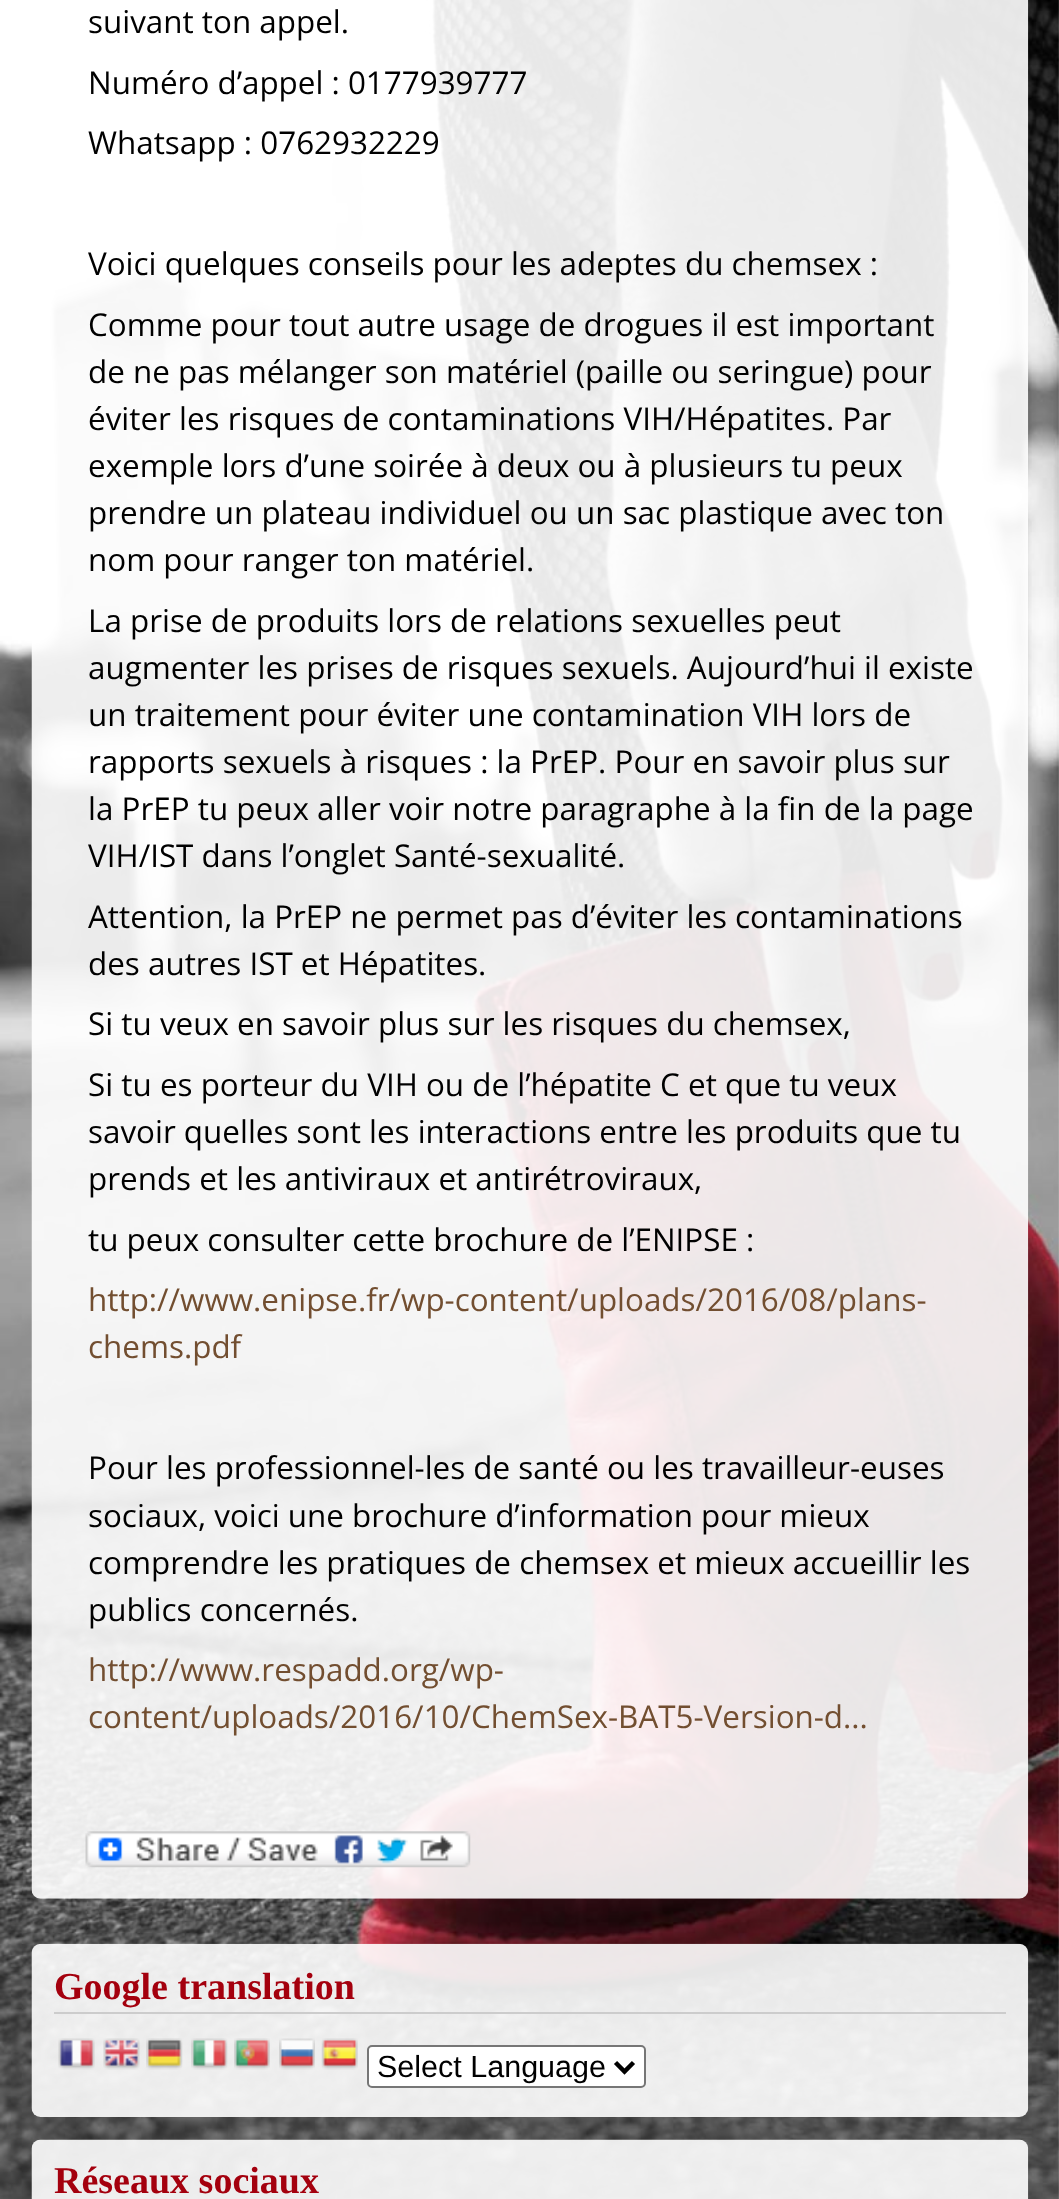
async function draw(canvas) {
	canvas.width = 1059;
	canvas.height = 2199;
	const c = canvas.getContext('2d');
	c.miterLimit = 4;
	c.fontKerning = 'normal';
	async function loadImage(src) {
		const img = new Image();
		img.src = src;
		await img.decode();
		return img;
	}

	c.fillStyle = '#fff';
	c.fillRect(0, 0, 1059, 2199);
	c.drawImage(await loadImage('img1.png'), 0, 0, 1059, 2199);
	c.drawImage(await loadImage('img2.png'), 31, 0, 998, 1899);
	c.font = '31.4px Open Sans';
	c.fillStyle = '#000';
	for (const [text, x, y] of [
		['suivant ton appel.', 88, 33],
		['Numéro d’appel : 0177939777', 88, 94],
		['Whatsapp : 0762932229', 88, 154],
		['Voici quelques conseils pour les adeptes du chemsex :', 88, 275],
		['Comme pour tout autre usage de drogues il est important', 88, 336],
		['de ne pas mélanger son matériel (paille ou seringue) pour', 88, 383],
		['éviter les risques de contaminations VIH/Hépatites. Par', 88, 430],
		['exemple lors d’une soirée à deux ou à plusieurs tu peux', 88, 477],
		['prendre un plateau individuel ou un sac plastique avec ton', 88, 524],
		['nom pour ranger ton matériel.', 88, 571],
		['La prise de produits lors de relations sexuelles peut', 88, 632],
		['augmenter les prises de risques sexuels. Aujourd’hui il existe', 88, 679],
		['un traitement pour éviter une contamination VIH lors de', 88, 726],
		['rapports sexuels à risques : la PrEP. Pour en savoir plus sur', 88, 773],
		['la PrEP tu peux aller voir notre paragraphe à la fin de la page', 88, 820],
		['VIH/IST dans l’onglet Santé-sexualité.', 88, 867],
		['Attention, la PrEP ne permet pas d’éviter les contaminations', 88, 928],
		['des autres IST et Hépatites.', 88, 975],
		['Si tu veux en savoir plus sur les risques du chemsex,', 88, 1035],
		['Si tu es porteur du VIH ou de l’hépatite C et que tu veux', 88, 1096],
		['savoir quelles sont les interactions entre les produits que tu', 88, 1143],
		['prends et les antiviraux et antirétroviraux,', 88, 1190],
		['tu peux consulter cette brochure de l’ENIPSE :', 88, 1251],
	]) {
		c.fillText(text, x, y);
	}
	c.fillStyle = '#724e30';
	c.fillText('http://www.enipse.fr/wp-content/uploads/2016/08/plans-', 88, 1311);
	c.fillText('chems.pdf', 88, 1358);
	c.fillStyle = '#000';
	for (const [text, x, y] of [
		['Pour les professionnel-les de santé ou les travailleur-euses', 88, 1479],
		['sociaux, voici une brochure d’information pour mieux', 88, 1527],
		['comprendre les pratiques de chemsex et mieux accueillir les', 88, 1574],
		['publics concernés.', 88, 1621],
	]) {
		c.fillText(text, x, y);
	}
	c.fillStyle = '#724e30';
	c.fillText('http://www.respadd.org/wp-', 88, 1681);
	c.fillText('content/uploads/2016/10/ChemSex-BAT5-Version-d...', 88, 1728);
	c.drawImage(await loadImage('img3.png'), 85, 1831, 386, 37);
	c.drawImage(await loadImage('img4.png'), 31, 1943, 998, 174);
	c.fillStyle = '#ccc';
	c.fillRect(54, 2012, 952, 2);
	c.font = 'bold 38px Liberation Serif';
	c.fillStyle = '#a4000e';
	c.fillText('Google translation', 54, 1999);
	c.drawImage(await loadImage('img5.png'), 58, 2038, 37, 32);
	c.drawImage(await loadImage('img6.png'), 103, 2038, 37, 32);
	c.drawImage(await loadImage('img7.png'), 146, 2038, 37, 32);
	c.drawImage(await loadImage('img8.png'), 191, 2038, 37, 32);
	c.drawImage(await loadImage('img9.png'), 234, 2038, 36, 32);
	c.drawImage(await loadImage('img10.png'), 279, 2038, 36, 32);
	c.drawImage(await loadImage('img11.png'), 321, 2038, 37, 32);
	c.fillStyle = '#fff';
	c.beginPath();
	c.roundRect(368, 2046, 277, 41, 4);
	c.fill();
	c.strokeStyle = '#767676';
	c.lineWidth = 2;
	c.stroke();
	c.beginPath();
	c.moveTo(615.5, 2062.5);
	c.lineTo(624.5, 2071.5);
	c.lineTo(633.5, 2062.5);
	c.strokeStyle = '#000';
	c.lineWidth = 4.5;
	c.stroke();
	c.font = '30.5px Liberation Sans';
	c.fillStyle = '#000';
	c.fillText('Select Language', 377, 2077);
	c.drawImage(await loadImage('img12.png'), 31, 2139, 998, 60);
	c.font = 'bold 38px Liberation Serif';
	c.fillStyle = '#a4000e';
	c.fillText('Réseaux sociaux', 54, 2193);
}

draw(document.querySelector('canvas'));
